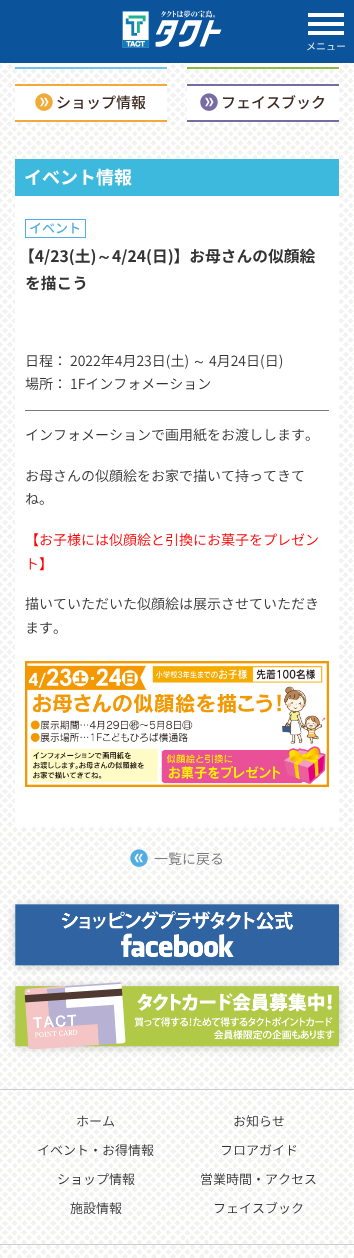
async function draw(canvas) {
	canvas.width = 354;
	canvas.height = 1258;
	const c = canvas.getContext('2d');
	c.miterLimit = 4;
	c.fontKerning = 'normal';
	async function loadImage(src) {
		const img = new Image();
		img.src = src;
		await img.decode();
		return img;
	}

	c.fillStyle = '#fff';
	c.fillRect(0, 0, 354, 1258);
	c.drawImage(await loadImage('img1.png'), 0, 63, 354, 1195);
	c.fillStyle = '#0b549c';
	c.fillRect(0, 0, 354, 63);
	c.drawImage(await loadImage('img2.png'), 122, 10, 100, 38);
	for (const [x, y, w, h, color] of [
		[308, 13, 36, 4, '#fff'],
		[308, 22, 36, 4, '#fff'],
		[308, 31, 36, 4, '#fff'],
	]) {
		c.fillStyle = color;
		c.fillRect(x, y, w, h);
	}
	c.font = '300 10px Noto Sans CJK JP';
	c.fillText('メニュー', 306, 50);
	for (const [x, y, w, h, color] of [
		[15, 63, 152, 4, '#fff'],
		[15, 67, 152, 2, '#6ac5eb'],
		[187, 63, 152, 4, '#fff'],
		[187, 67, 152, 2, '#88bd43'],
		[15, 86, 152, 34, '#fff'],
		[15, 84, 152, 2, '#efaa37'],
		[15, 120, 152, 2, '#efaa37'],
	]) {
		c.fillStyle = color;
		c.fillRect(x, y, w, h);
	}
	c.drawImage(await loadImage('img3.png'), 35, 93, 18, 18);
	c.font = '500 15px Noto Sans CJK JP';
	c.fillStyle = '#3e2b23';
	c.fillText('ショップ情報', 56, 108);
	for (const [x, y, w, h, color] of [
		[187, 86, 152, 34, '#fff'],
		[187, 84, 152, 2, '#776ba4'],
		[187, 120, 152, 2, '#776ba4'],
	]) {
		c.fillStyle = color;
		c.fillRect(x, y, w, h);
	}
	c.drawImage(await loadImage('img4.png'), 200, 93, 18, 18);
	c.fillStyle = '#3e2b23';
	c.fillText('フェイスブック', 221, 108);
	c.fillStyle = '#3cb9dd';
	c.fillRect(15, 159, 324, 37);
	c.font = 'bold 18px Noto Sans CJK JP';
	c.fillStyle = '#fff';
	c.fillText('イベント情報', 24, 184);
	c.fillRect(15, 196, 324, 631);
	c.strokeStyle = '#52aee2';
	c.strokeRect(25.5, 219.5, 60, 18);
	c.font = '500 13px Noto Sans CJK JP';
	c.fillStyle = '#52aee2';
	c.fillText('イベント', 29, 233);
	c.font = 'bold 15.75px Noto Sans CJK JP';
	c.fillStyle = '#333';
	c.fillText('【4/23(土)', 19, 262);
	c.font = 'bold 15.75px WenQuanYi Zen Hei';
	c.fillText('～', 96, 262);
	c.font = 'bold 15.75px Noto Sans CJK JP';
	c.fillText('4/24(日)】お母さんの似顔絵', 112, 262);
	c.fillText('を描こう', 25, 289);
	c.fillStyle = '#787979';
	c.fillRect(25, 410, 304, 1);
	c.font = '300 14px Noto Sans CJK JP';
	c.fillStyle = '#333';
	c.fillText('日程：', 25, 366);
	c.fillText('2022年4月23日(土)', 70, 366);
	c.font = '500 14px WenQuanYi Zen Hei';
	c.fillText('～', 192, 366);
	c.font = '300 14px Noto Sans CJK JP';
	for (const [text, x, y] of [
		['4月24日(日)', 209, 366],
		['場所：', 25, 389],
		['1Fインフォメーション', 70, 389],
		['インフォメーションで画用紙をお渡しします。', 25, 440],
		['お母さんの似顔絵をお家で描いて持ってきて', 25, 481],
		['ね。', 25, 504],
	]) {
		c.fillText(text, x, y);
	}
	c.fillStyle = '#f00';
	c.fillText('【お子様には似顔絵と引換にお菓子をプレゼン', 25, 545);
	c.fillText('ト】', 25, 569);
	c.fillStyle = '#333';
	c.fillText('描いていただいた似顔絵は展示させていただき', 25, 609);
	c.fillText('ます。', 25, 633);
	c.drawImage(await loadImage('img5.png'), 25, 661, 304, 126);
	c.drawImage(await loadImage('img6.png'), 130, 849, 18, 18);
	c.fillStyle = '#787979';
	c.fillText('一覧に戻る', 154, 864);
	c.fillStyle = '#0000004d';
	c.filter = 'blur(6px)';
	c.beginPath();
	c.rect(17, 908, 320, 56);
	c.fill();
	c.filter = 'none';
	c.drawImage(await loadImage('img7.png'), 15, 904, 324, 62);
	c.filter = 'blur(6px)';
	c.beginPath();
	c.rect(17, 989, 320, 56);
	c.fill();
	c.filter = 'none';
	c.drawImage(await loadImage('img8.png'), 15, 982, 324, 67);
	c.fillStyle = '#cdcccc';
	c.fillRect(0, 1089, 354, 1);
	c.fillRect(0, 1244, 354, 1);
	c.font = '300 13px Noto Sans CJK JP';
	c.fillStyle = '#333';
	for (const [text, x, y] of [
		['ホーム', 76, 1126],
		['お知らせ', 233, 1126],
		['イベント・お得情報', 37, 1155],
		['フロアガイド', 220, 1155],
		['ショップ情報', 57, 1184],
		['営業時間・アクセス', 200, 1184],
		['施設情報', 70, 1213],
		['フェイスブック', 213, 1213],
	]) {
		c.fillText(text, x, y);
	}
}

draw(document.querySelector('canvas'));
